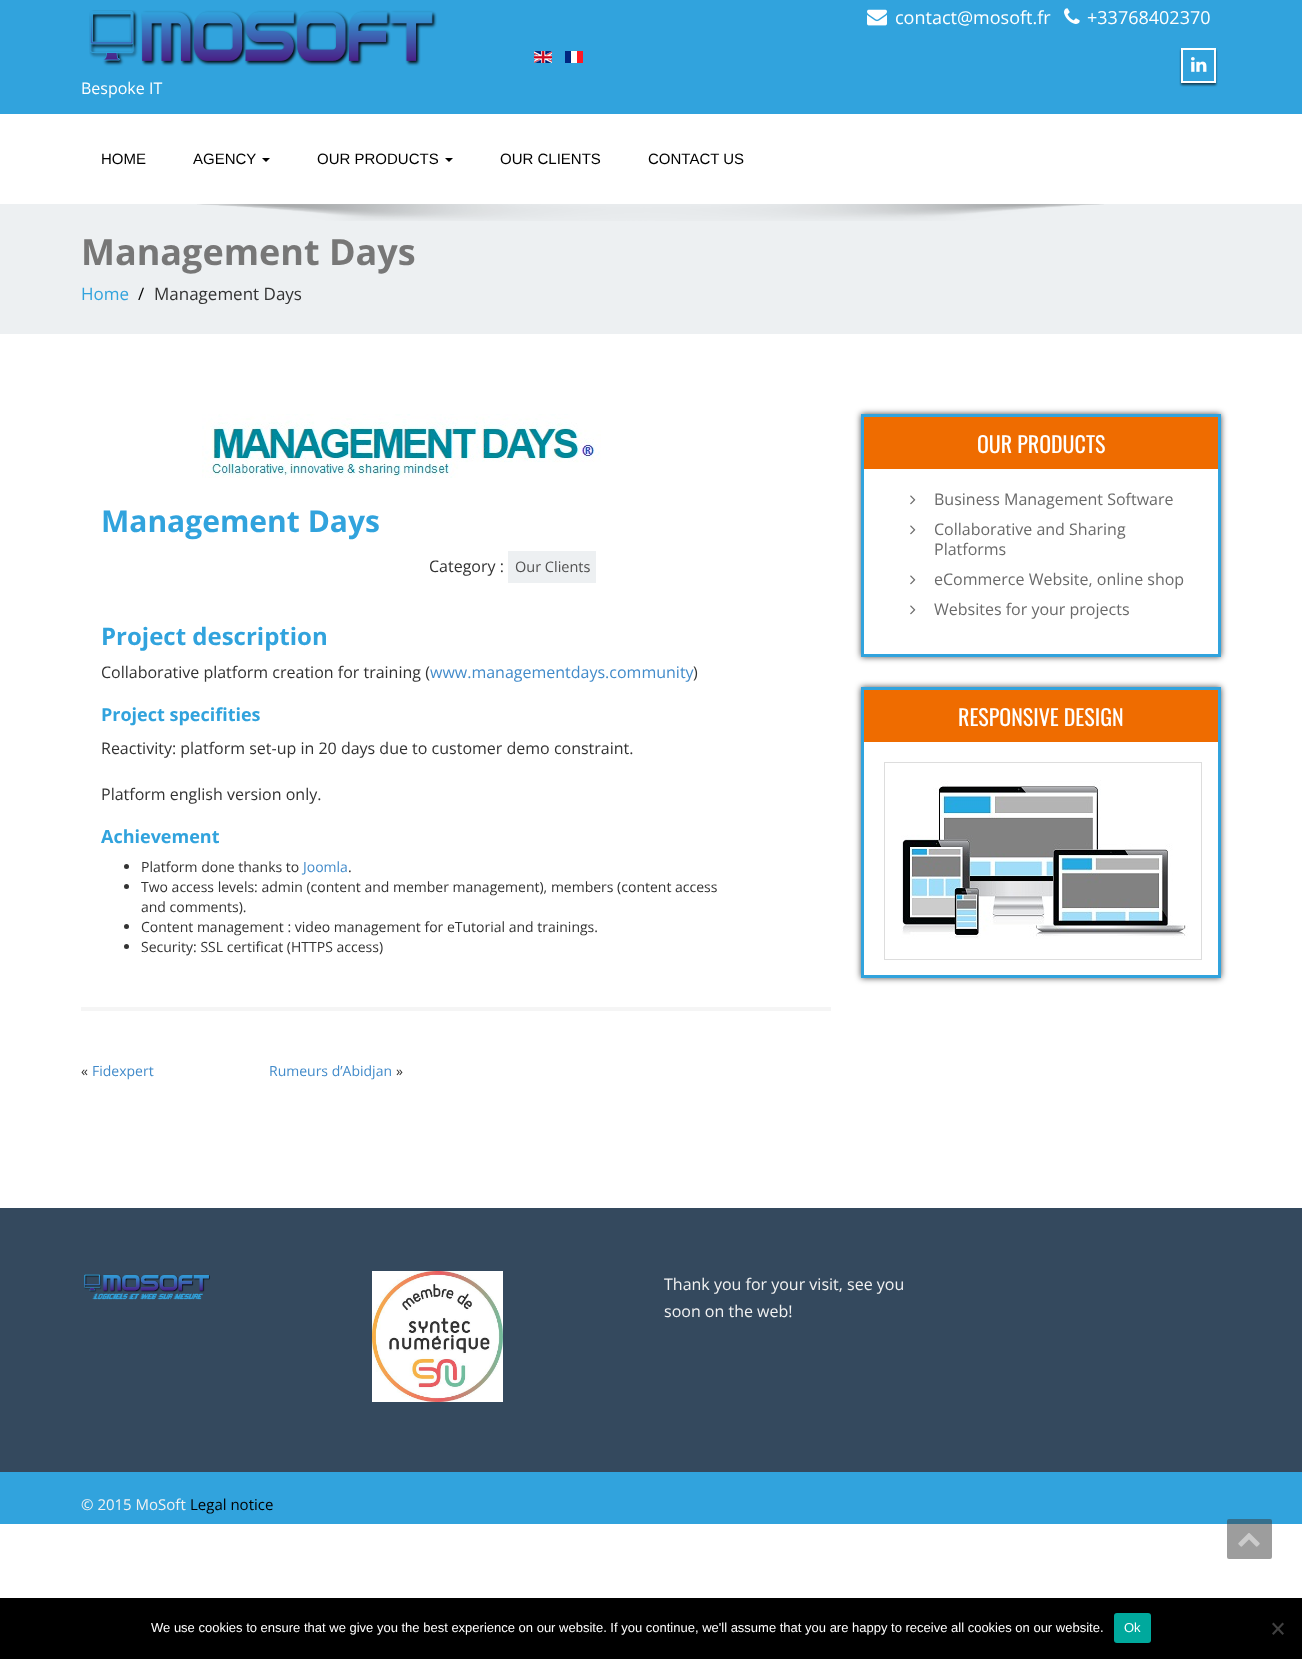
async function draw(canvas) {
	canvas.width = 1302;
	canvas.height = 1659;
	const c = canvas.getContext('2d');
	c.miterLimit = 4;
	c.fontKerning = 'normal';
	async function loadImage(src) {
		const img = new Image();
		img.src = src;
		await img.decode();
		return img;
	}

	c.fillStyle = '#fff';
	c.fillRect(0, 0, 1302, 1659);
	c.fillStyle = '#31a3dd';
	c.fillRect(0, 0, 1302, 114);
	c.drawImage(await loadImage('img1.png'), 867, 9, 20, 17);
	c.font = '18px Open Sans';
	c.fillStyle = '#fff';
	c.fillText('contact@mosoft.fr', 895, 24);
	c.drawImage(await loadImage('img2.png'), 1064, 8, 16, 16);
	c.fillText('+33768402370', 1087, 24);
	c.save();
	c.beginPath();
	c.moveTo(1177, 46);
	c.lineTo(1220, 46);
	c.lineTo(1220, 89);
	c.lineTo(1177, 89);
	c.closePath();
	c.moveTo(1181, 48);
	c.lineTo(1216, 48);
	c.lineTo(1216, 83);
	c.lineTo(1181, 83);
	c.closePath();
	c.clip('evenodd');
	c.fillStyle = '#00000099';
	c.filter = 'blur(1px)';
	c.beginPath();
	c.rect(1181, 50, 35, 35);
	c.fill();
	c.filter = 'none';
	c.restore();
	c.strokeStyle = '#fff';
	c.lineWidth = 2;
	c.strokeRect(1182, 49, 33, 33);
	c.drawImage(await loadImage('img3.png'), 1191, 57, 16, 15);
	c.drawImage(await loadImage('img4.png'), 534, 51, 18, 12);
	c.drawImage(await loadImage('img5.png'), 565, 51, 18, 12);
	c.drawImage(await loadImage('img6.png'), 89, 10, 348, 56);
	c.font = '16px Open Sans';
	c.fillText('Bespoke IT', 81, 94);
	c.font = '15px Liberation Sans';
	c.fillStyle = '#000';
	c.fillText('HOME', 101, 164);
	c.fillText('AGENCY', 193, 164);
	c.beginPath();
	c.moveTo(262, 158);
	c.lineTo(270, 158);
	c.lineTo(266, 162);
	c.closePath();
	c.fill();
	c.fillText('OUR PRODUCTS', 317, 164);
	c.beginPath();
	c.moveTo(445, 158);
	c.lineTo(453, 158);
	c.lineTo(449, 162);
	c.closePath();
	c.fill();
	c.fillText('OUR CLIENTS', 500, 164);
	c.fillText('CONTACT US', 648, 164);
	c.fillStyle = '#edf0f2';
	c.fillRect(0, 204, 1302, 130);
	c.drawImage(await loadImage('img7.png'), 197, 204, 907, 17);
	c.font = 'bold 36px Open Sans';
	c.fillStyle = '#777';
	c.fillText('Management Days', 81, 265);
	c.font = '17px Open Sans';
	c.fillStyle = '#31a3dd';
	c.fillText('Home', 81, 300);
	c.fillStyle = '#000';
	c.fillText('/', 138, 300);
	c.fillStyle = '#333';
	c.fillText('Management Days', 154, 300);
	c.drawImage(await loadImage('img8.png'), 202, 414, 399, 64);
	c.font = 'bold 30px Open Sans';
	c.fillStyle = '#31a3dd';
	c.fillText('Management Days', 101, 532);
	c.font = '16px Open Sans';
	c.fillStyle = '#333';
	c.fillText('Category :', 429, 572);
	c.fillStyle = '#edf0f2';
	c.fillRect(508, 551, 88, 32);
	c.font = '14.5px Open Sans';
	c.fillStyle = '#515151';
	c.fillText('Our Clients', 515, 572);
	c.font = 'bold 24px Open Sans';
	c.fillStyle = '#31a3dd';
	c.fillText('Project description', 101, 645);
	c.font = '16px Open Sans';
	c.fillStyle = '#333';
	c.fillText('Collaborative platform creation for training (', 101, 678);
	c.fillStyle = '#428bca';
	c.fillText('www.managementdays.community', 430, 678);
	c.fillStyle = '#333';
	c.fillText(')', 693, 678);
	c.font = 'bold 18px Open Sans';
	c.fillStyle = '#31a3dd';
	c.fillText('Project specifities', 101, 721);
	c.font = '16px Open Sans';
	c.fillStyle = '#333';
	c.fillText('Reactivity: platform set-up in 20 days due to customer demo constraint.', 101, 754);
	c.fillText('Platform english version only.', 101, 800);
	c.font = 'bold 18px Open Sans';
	c.fillStyle = '#31a3dd';
	c.fillText('Achievement', 101, 843);
	c.fillStyle = '#333';
	c.beginPath();
	c.arc(126.5, 866.5, 2.5, 0, 2 * Math.PI);
	c.fill();
	c.font = '14px Open Sans';
	c.fillText('Platform done thanks to', 141, 872);
	c.fillStyle = '#428bca';
	c.fillText('Joomla', 303, 872);
	c.fillStyle = '#333';
	c.fillText('.', 348, 872);
	c.beginPath();
	c.arc(126.5, 886.5, 2.5, 0, 2 * Math.PI);
	c.fill();
	c.fillText('Two access levels: admin (content and member management), members (content access', 141, 892);
	c.fillText('and comments).', 141, 912);
	c.beginPath();
	c.arc(126.5, 926.5, 2.5, 0, 2 * Math.PI);
	c.fill();
	c.fillText('Content management : video management for eTutorial and trainings.', 141, 932);
	c.beginPath();
	c.arc(126.5, 946.5, 2.5, 0, 2 * Math.PI);
	c.fill();
	c.fillText('Security: SSL certificat (HTTPS access)', 141, 952);
	c.fillStyle = '#f5f5f5';
	c.fillRect(81, 1007, 750, 4);
	c.fillStyle = '#333';
	c.fillText('«', 81, 1076);
	c.fillStyle = '#428bca';
	c.fillText('Fidexpert', 92, 1076);
	c.fillText('Rumeurs d’Abidjan', 269, 1076);
	c.fillStyle = '#333';
	c.fillText('»', 396, 1076);
	c.save();
	c.beginPath();
	c.moveTo(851, 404);
	c.lineTo(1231, 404);
	c.lineTo(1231, 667);
	c.lineTo(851, 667);
	c.closePath();
	c.moveTo(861, 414);
	c.lineTo(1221, 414);
	c.lineTo(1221, 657);
	c.lineTo(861, 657);
	c.closePath();
	c.clip('evenodd');
	c.fillStyle = '#000000b3';
	c.filter = 'blur(3px)';
	c.beginPath();
	c.rect(861, 414, 360, 243);
	c.fill();
	c.filter = 'none';
	c.restore();
	c.strokeStyle = '#31a3dd';
	c.lineWidth = 3;
	c.strokeRect(862.5, 415.5, 357, 240);
	c.fillStyle = '#ef6c00';
	c.fillRect(864, 417, 354, 52);
	c.font = '22px Oswald';
	c.fillStyle = '#fff';
	c.fillText('OUR PRODUCTS', 977, 453);
	c.drawImage(await loadImage('img9.png'), 910, 495, 6, 10);
	c.font = '16px Open Sans';
	c.fillStyle = '#6a6a6a';
	c.fillText('Business Management Software', 934, 505);
	c.drawImage(await loadImage('img9.png'), 910, 525, 6, 10);
	c.fillText('Collaborative and Sharing', 934, 535);
	c.fillText('Platforms', 934, 555);
	c.drawImage(await loadImage('img9.png'), 910, 575, 6, 10);
	c.fillText('eCommerce Website, online shop', 934, 585);
	c.drawImage(await loadImage('img9.png'), 910, 605, 6, 10);
	c.fillText('Websites for your projects', 934, 615);
	c.save();
	c.beginPath();
	c.moveTo(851, 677);
	c.lineTo(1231, 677);
	c.lineTo(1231, 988);
	c.lineTo(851, 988);
	c.closePath();
	c.moveTo(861, 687);
	c.lineTo(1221, 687);
	c.lineTo(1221, 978);
	c.lineTo(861, 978);
	c.closePath();
	c.clip('evenodd');
	c.fillStyle = '#000000b3';
	c.filter = 'blur(3px)';
	c.beginPath();
	c.rect(861, 687, 360, 291);
	c.fill();
	c.filter = 'none';
	c.restore();
	c.strokeRect(862.5, 688.5, 357, 288);
	c.fillStyle = '#ef6c00';
	c.fillRect(864, 690, 354, 52);
	c.font = '22px Oswald';
	c.fillStyle = '#fff';
	c.fillText('RESPONSIVE DESIGN', 958, 726);
	for (const [x, y, w, h, color] of [
		[884, 762, 318, 1, '#ddd'],
		[1201, 762, 1, 198, '#ddd'],
		[884, 959, 318, 1, '#ddd'],
		[884, 762, 1, 198, '#ddd'],
	]) {
		c.fillStyle = color;
		c.fillRect(x, y, w, h);
	}
	c.drawImage(await loadImage('img10.png'), 901, 780, 287, 159);
	c.fillStyle = '#34495e';
	c.fillRect(0, 1208, 1302, 264);
	c.drawImage(await loadImage('img11.png'), 84, 1274, 126, 26);
	c.drawImage(await loadImage('img12.png'), 372, 1271, 131, 131);
	c.font = '16px Open Sans';
	c.fillStyle = '#f2f2f2';
	c.fillText('Thank you for your visit, see you', 664, 1290);
	c.fillText('soon on the web!', 664, 1317);
	c.fillStyle = '#31a3dd';
	c.fillRect(0, 1472, 1302, 52);
	c.font = '15px Open Sans';
	c.fillStyle = '#f2f2f2';
	c.fillText('© 2015 MoSoft', 81, 1510);
	c.fillStyle = '#000';
	c.fillText('Legal notice', 190, 1510);
	c.fillStyle = '#3b3b3b80';
	c.beginPath();
	c.roundRect(1227, 1519, 45, 40, 2);
	c.fill();
	c.drawImage(await loadImage('img13.png'), 1238, 1533, 22, 14);
	c.fillStyle = '#000';
	c.fillRect(0, 1598, 1302, 61);
	c.font = '13px Liberation Sans';
	c.fillStyle = '#fff';
	c.fillText('We use cookies to ensure that we give you the best experience on our website. If you continue, we\'ll assume that you are happy to receive all cookies on our website.', 151, 1632);
	c.fillStyle = '#00a99d';
	c.beginPath();
	c.roundRect(1114, 1613, 37, 30, 3);
	c.fill();
	c.fillStyle = '#fff';
	c.fillText('Ok', 1124, 1632);
	c.fillStyle = '#404040';
	c.beginPath();
	c.moveTo(1282.5, 1622.5);
	c.lineTo(1284, 1624);
	c.lineTo(1273.5, 1635);
	c.lineTo(1272, 1633.5);
	c.closePath();
	c.fill();
	c.beginPath();
	c.moveTo(1272, 1624);
	c.lineTo(1273.5, 1622.5);
	c.lineTo(1284, 1633.5);
	c.lineTo(1282.5, 1635);
	c.closePath();
	c.fill();
}

draw(document.querySelector('canvas'));
